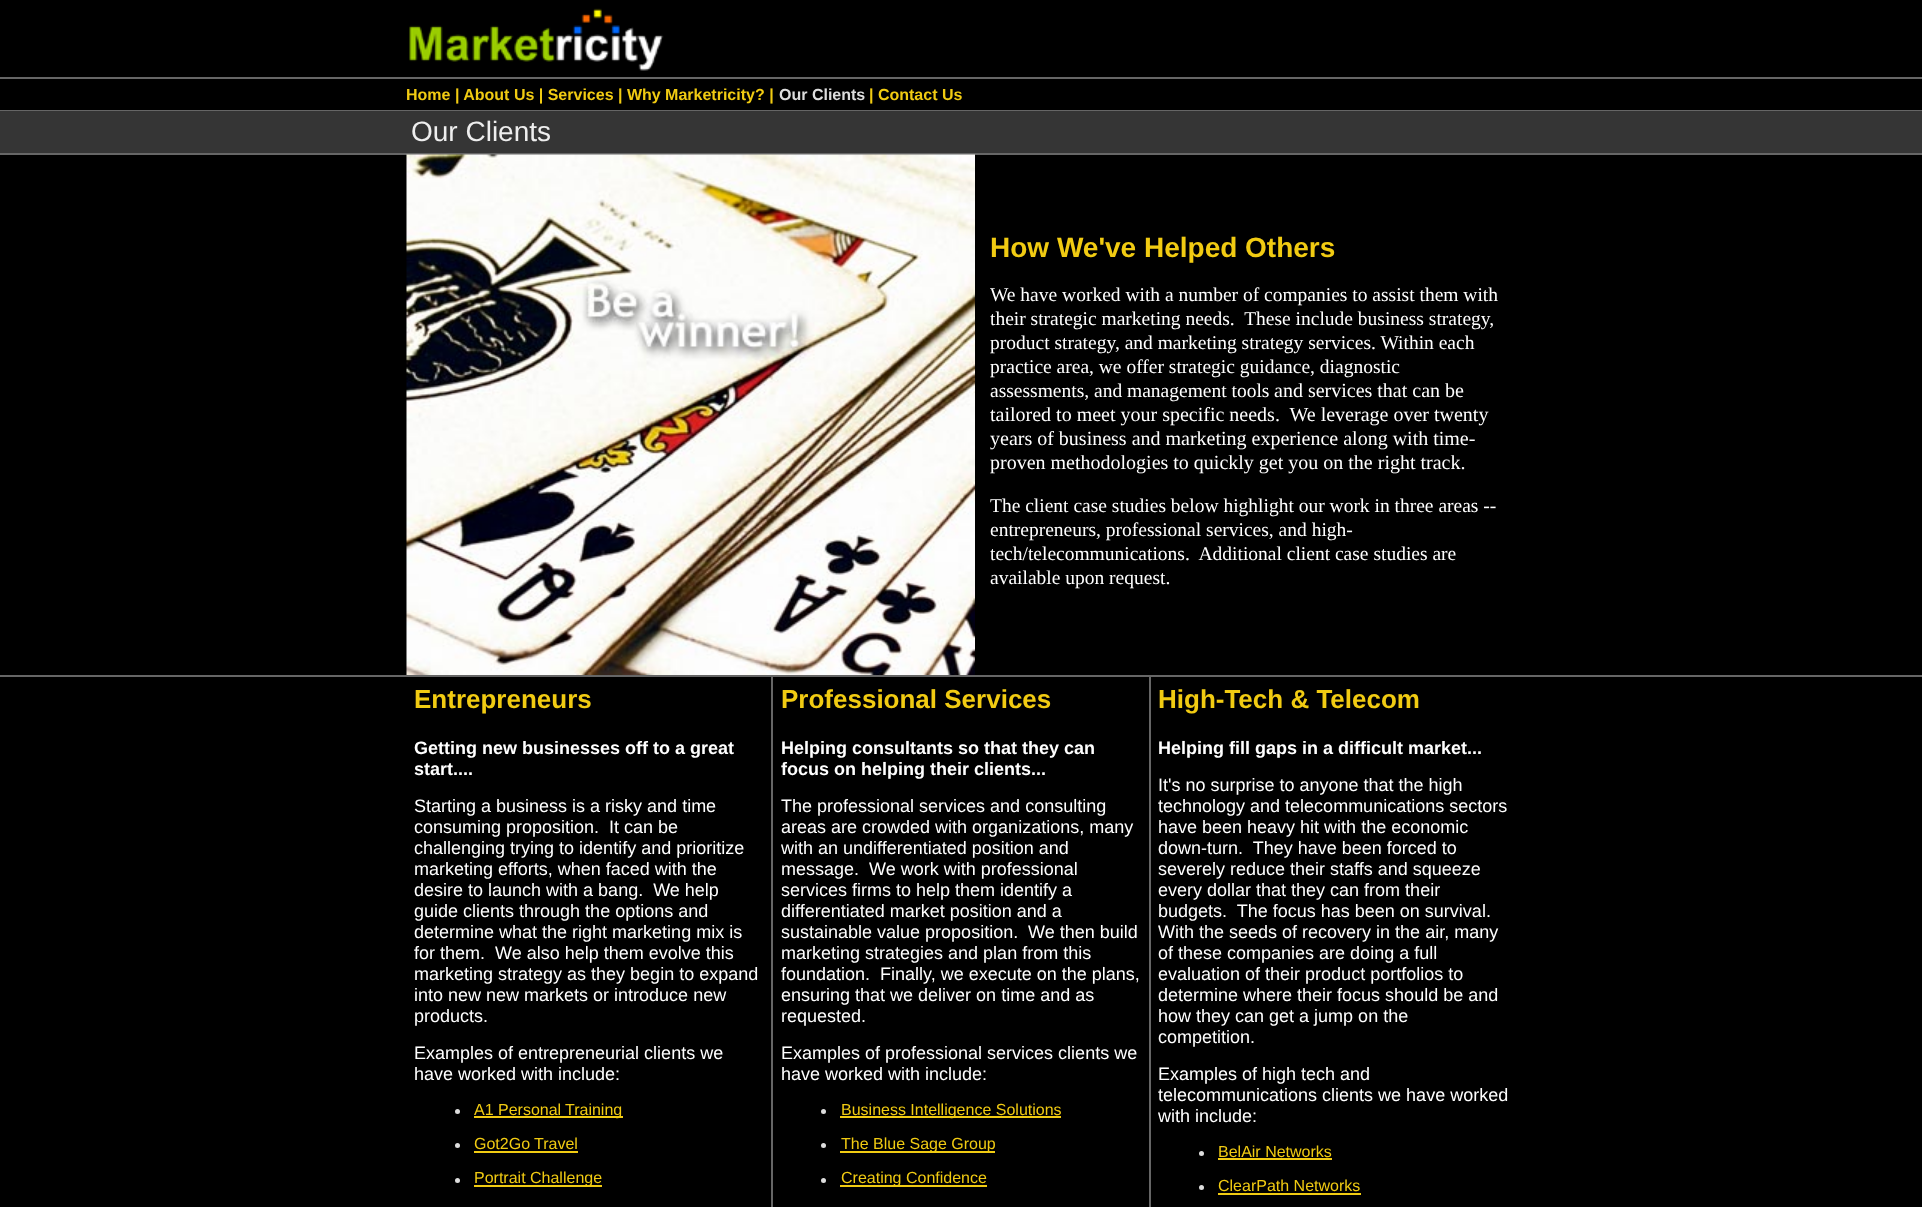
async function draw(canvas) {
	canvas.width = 1922;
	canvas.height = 1207;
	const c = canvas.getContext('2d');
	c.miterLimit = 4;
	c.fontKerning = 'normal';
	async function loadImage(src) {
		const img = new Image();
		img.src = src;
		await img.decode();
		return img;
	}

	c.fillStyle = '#000';
	c.fillRect(0, 0, 1922, 1207);
	c.drawImage(await loadImage('img1.png'), 409, 8, 255, 63);
	c.fillStyle = '#666';
	c.fillRect(0, 77, 1922, 2);
	c.font = 'bold 16px Liberation Sans';
	c.fillStyle = '#f1cb12';
	c.fillText('Home | About Us | Services | Why Marketricity? |', 406, 100);
	c.fillStyle = '#ddd';
	c.fillText('Our Clients', 779, 100);
	c.fillStyle = '#f1cb12';
	c.fillText('| Contact Us', 869, 100);
	c.fillStyle = '#666';
	c.fillRect(0, 110, 1922, 1);
	c.fillStyle = '#353535';
	c.fillRect(0, 111, 1922, 42);
	c.font = '28px Liberation Sans';
	c.fillStyle = '#eee';
	c.fillText('Our Clients', 411, 141);
	c.fillStyle = '#666';
	c.fillRect(0, 153, 1922, 2);
	c.drawImage(await loadImage('img2.png'), 406, 154, 569, 521);
	c.font = 'bold 28px Liberation Sans';
	c.fillStyle = '#f1cb12';
	c.fillText('How We\'ve Helped Others', 990, 257);
	c.font = '19.5px Liberation Serif';
	c.fillStyle = '#fff';
	for (const [text, x, y] of [
		['We have worked with a number of companies to assist them with', 990, 301],
		['their strategic marketing needs.  These include business strategy,', 990, 325],
		['product strategy, and marketing strategy services. Within each', 990, 349],
		['practice area, we offer strategic guidance, diagnostic', 990, 373],
		['assessments, and management tools', 990, 397],
	]) {
		c.fillText(text, x, y);
	}
	c.font = '20px Liberation Serif';
	for (const [text, x, y] of [
		['and services that can be', 1274, 397],
		['tailored to meet your specific needs.  We leverage over twenty', 990, 421],
		['years of business and marketing experience along with time-', 990, 445],
		['proven methodologies to quickly get you on the right track.', 990, 469],
	]) {
		c.fillText(text, x, y);
	}
	c.font = '19.5px Liberation Serif';
	for (const [text, x, y] of [
		['The client case studies below highlight our work in three areas --', 990, 512],
		['entrepreneurs, professional services, and high-', 990, 536],
		['tech/telecommunications.  Additional client case studies are', 990, 560],
		['available upon request.', 990, 584],
	]) {
		c.fillText(text, x, y);
	}
	c.fillStyle = '#666';
	c.fillRect(0, 675, 1922, 2);
	c.font = 'bold 26px Liberation Sans';
	c.fillStyle = '#f1cb12';
	c.fillText('Entrepreneurs', 414, 708);
	c.font = 'bold 18px Liberation Sans';
	c.fillStyle = '#fff';
	c.fillText('Getting new businesses off to a great', 414, 754);
	c.fillText('start....', 414, 775);
	c.font = '18px Liberation Sans';
	for (const [text, x, y] of [
		['Starting a business is a risky and time', 414, 812],
		['consuming proposition.', 414, 833],
		['It can be', 609, 833],
		['challenging trying to identify and prioritize', 414, 854],
		['marketing efforts, when faced with the', 414, 875],
		['desire to launch with a bang.  We help', 414, 896],
		['guide clients through the options and', 414, 917],
		['determine what the right marketing mix is', 414, 938],
		['for them.  We also help them evolve this', 414, 959],
		['marketing strategy as they begin to expand', 414, 980],
		['into new new markets or introduce new', 414, 1001],
		['products.', 414, 1022],
		['Examples of entrepreneurial clients we', 414, 1059],
		['have worked with include:', 414, 1080],
	]) {
		c.fillText(text, x, y);
	}
	c.fillStyle = '#ddd';
	c.beginPath();
	c.arc(457.5, 1111.5, 2.5, 0, 2 * Math.PI);
	c.fill();
	c.font = '16px Liberation Sans';
	c.fillStyle = '#f1cb12';
	c.fillText('A1 Personal', 474, 1115);
	c.fillRect(474, 1116, 149, 2);
	c.fillText('Training', 565, 1115);
	c.fillStyle = '#ddd';
	c.beginPath();
	c.arc(457.5, 1145.5, 2.5, 0, 2 * Math.PI);
	c.fill();
	c.fillStyle = '#f1cb12';
	c.fillText('Got2Go', 474, 1149);
	c.fillRect(474, 1151, 104, 2);
	c.fillText('Travel', 534, 1149);
	c.fillStyle = '#ddd';
	c.beginPath();
	c.arc(457.5, 1180.5, 2.5, 0, 2 * Math.PI);
	c.fill();
	c.fillStyle = '#f1cb12';
	c.fillRect(474, 1185, 128, 2);
	c.fillText('Portrait Challenge', 474, 1183);
	c.fillStyle = '#666';
	c.fillRect(771, 677, 2, 530);
	c.font = 'bold 26px Liberation Sans';
	c.fillStyle = '#f1cb12';
	c.fillText('Professional Services', 781, 708);
	c.font = 'bold 18px Liberation Sans';
	c.fillStyle = '#fff';
	c.fillText('Helping consultants so that they can', 781, 754);
	c.fillText('focus on helping their clients...', 781, 775);
	c.font = '18px Liberation Sans';
	for (const [text, x, y] of [
		['The professional services and consulting', 781, 812],
		['areas are crowded with organizations, many', 781, 833],
		['with an undifferentiated position and', 781, 854],
		['message.', 781, 875],
		['We work with professional', 869, 875],
		['services firms to help them identify a', 781, 896],
		['differentiated market position and a', 781, 917],
		['sustainable value proposition.', 781, 938],
		['We then build', 1028, 938],
		['marketing strategies and plan from this', 781, 959],
		['foundation.', 781, 980],
		['Finally, we execute on the plans,', 880, 980],
		['ensuring that we deliver on time and as', 781, 1001],
		['requested.', 781, 1022],
		['Examples of professional services clients we', 781, 1059],
		['have worked with include:', 781, 1080],
	]) {
		c.fillText(text, x, y);
	}
	c.fillStyle = '#ddd';
	c.beginPath();
	c.arc(823.5, 1111.5, 2.5, 0, 2 * Math.PI);
	c.fill();
	c.fillStyle = '#f1cb12';
	c.fillRect(840, 1116, 221, 2);
	c.font = '16px Liberation Sans';
	c.fillText('Business Intelligence Solutions', 841, 1115);
	c.fillStyle = '#ddd';
	c.beginPath();
	c.arc(823.5, 1145.5, 2.5, 0, 2 * Math.PI);
	c.fill();
	c.fillStyle = '#f1cb12';
	c.fillRect(840, 1151, 155, 2);
	c.fillText('The Blue Sage Group', 841, 1149);
	c.fillStyle = '#ddd';
	c.beginPath();
	c.arc(823.5, 1180.5, 2.5, 0, 2 * Math.PI);
	c.fill();
	c.fillStyle = '#f1cb12';
	c.fillRect(840, 1185, 147, 2);
	c.fillText('Creating Confidence', 841, 1183);
	c.fillStyle = '#666';
	c.fillRect(1149, 677, 2, 530);
	c.font = 'bold 26px Liberation Sans';
	c.fillStyle = '#f1cb12';
	c.fillText('High-Tech & Telecom', 1158, 708);
	c.font = 'bold 18px Liberation Sans';
	c.fillStyle = '#fff';
	c.fillText('Helping fill gaps in a difficult market...', 1158, 754);
	c.font = '18px Liberation Sans';
	for (const [text, x, y] of [
		['It\'s no surprise to anyone that the high', 1158, 791],
		['technology and telecommunications sectors', 1158, 812],
		['have been heavy hit with the economic', 1158, 833],
		['down-turn.  They have been forced to', 1158, 854],
		['severely reduce their staffs and squeeze', 1158, 875],
		['every dollar that they can from their', 1158, 896],
		['budgets.  The focus has been on survival.', 1158, 917],
		['With the seeds of recovery in the air, many', 1158, 938],
		['of these companies are doing a full', 1158, 959],
		['evaluation of their product portfolios to', 1158, 980],
		['determine where their focus should be and', 1158, 1001],
		['how they can get a jump on the', 1158, 1022],
		['competition.', 1158, 1043],
		['Examples of high tech and', 1158, 1080],
		['telecommunications clients we have worked', 1158, 1101],
		['with include:', 1158, 1122],
	]) {
		c.fillText(text, x, y);
	}
	c.fillStyle = '#ddd';
	c.beginPath();
	c.arc(1201.5, 1153.5, 2.5, 0, 2 * Math.PI);
	c.fill();
	c.font = '16px Liberation Sans';
	c.fillStyle = '#f1cb12';
	c.fillText('BelAir Networks', 1218, 1157);
	c.fillRect(1218, 1158, 114, 2);
	c.fillStyle = '#ddd';
	c.beginPath();
	c.arc(1201.5, 1187.5, 2.5, 0, 2 * Math.PI);
	c.fill();
	c.fillStyle = '#f1cb12';
	c.fillText('ClearPath Networks', 1218, 1191);
	c.fillRect(1218, 1193, 143, 2);
}

draw(document.querySelector('canvas'));
